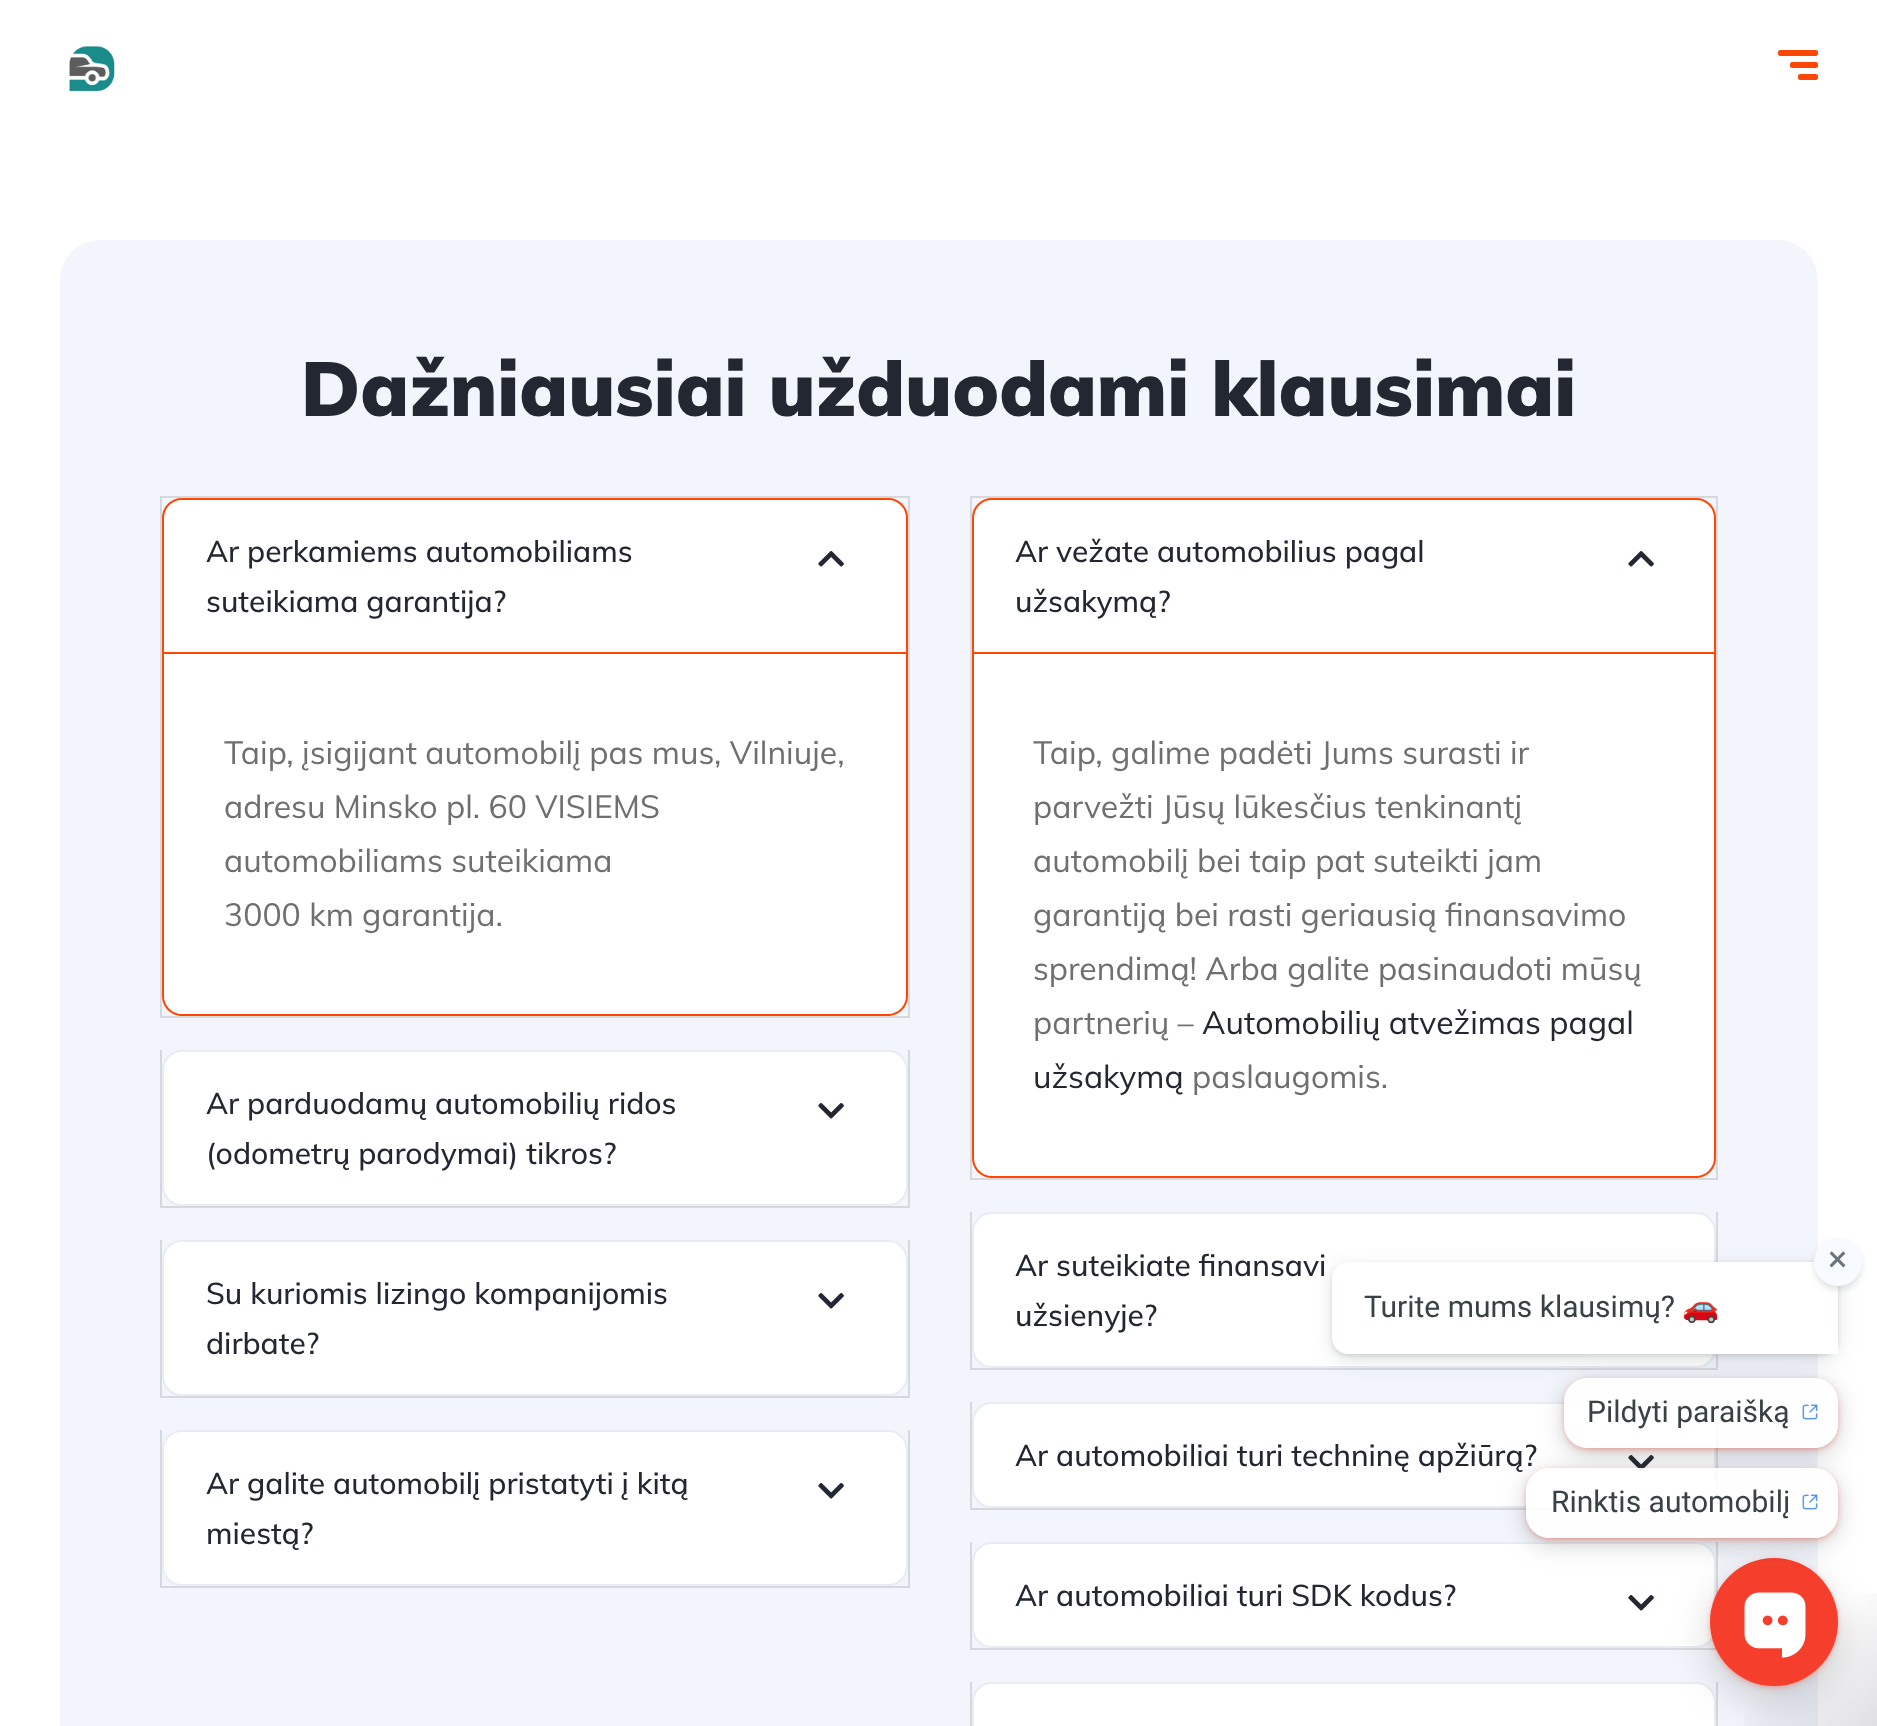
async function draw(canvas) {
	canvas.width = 1877;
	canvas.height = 1726;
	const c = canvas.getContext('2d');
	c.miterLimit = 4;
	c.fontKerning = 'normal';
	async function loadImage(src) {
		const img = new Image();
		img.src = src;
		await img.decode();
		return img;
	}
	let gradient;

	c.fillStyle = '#fff';
	c.fillRect(0, 0, 1877, 1726);
	c.drawImage(await loadImage('img1.png'), 69, 45, 46, 47);
	c.drawImage(await loadImage('img2.png'), 1778, 50, 40, 30);
	c.fillStyle = '#f2f5fb';
	c.beginPath();
	c.roundRect(60, 240, 1758, 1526, 40);
	c.fill();
	c.font = '900 76px Muli';
	c.fillStyle = '#222732';
	c.fillText('Dažniausiai užduodami klausimai', 301, 416);
	c.strokeStyle = '#d5d8dc';
	c.lineWidth = 2;
	c.strokeRect(161, 497, 748, 520);
	c.fillStyle = '#fff';
	c.beginPath();
	c.roundRect(163, 499, 744, 154, [19, 19, 0, 0]);
	c.fill();
	c.strokeStyle = '#ff4605';
	c.stroke();
	c.font = '500 30px Muli';
	c.fillStyle = '#222732';
	c.fillText('Ar perkamiems automobiliams', 206, 562);
	c.drawImage(await loadImage('img3.png'), 818, 551, 26, 16);
	c.fillText('suteikiama garantija?', 206, 612);
	c.fillStyle = '#fff';
	c.beginPath();
	c.roundRect(164, 654, 742, 360, [0, 0, 18, 18]);
	c.fill();
	c.fillStyle = '#ff4605';
	c.beginPath();
	c.moveTo(162, 654);
	c.lineTo(908, 654);
	c.lineTo(908, 996);
	c.bezierCurveTo(908, 1007, 899, 1016, 888, 1016);
	c.lineTo(182, 1016);
	c.bezierCurveTo(171, 1016, 162, 1007, 162, 996);
	c.closePath();
	c.moveTo(164, 654);
	c.lineTo(906, 654);
	c.lineTo(906, 996);
	c.bezierCurveTo(906, 1006, 898, 1014, 888, 1014);
	c.lineTo(182, 1014);
	c.bezierCurveTo(172, 1014, 164, 1006, 164, 996);
	c.closePath();
	c.fill('evenodd');
	c.font = '32px Muli';
	c.fillStyle = '#6f6f6f';
	for (const [text, x, y] of [
		['Taip, įsigijant automobilį pas mus, Vilniuje,', 224, 764],
		['adresu Minsko pl. 60 VISIEMS', 224, 818],
		['automobiliams suteikiama', 224, 872],
		['3000 km garantija.', 224, 926],
	]) {
		c.fillText(text, x, y);
	}
	for (const [x, y, w, h, color] of [
		[908, 1050, 2, 158, '#d5d8dc'],
		[160, 1206, 750, 2, '#d5d8dc'],
		[160, 1050, 2, 158, '#d5d8dc'],
	]) {
		c.fillStyle = color;
		c.fillRect(x, y, w, h);
	}
	c.fillStyle = '#fff';
	c.beginPath();
	c.roundRect(163, 1051, 744, 154, 19);
	c.fill();
	c.strokeStyle = '#e7edf3';
	c.stroke();
	c.font = '500 30px Muli';
	c.fillStyle = '#222732';
	c.fillText('Ar parduodamų automobilių ridos', 206, 1114);
	c.drawImage(await loadImage('img4.png'), 818, 1103, 26, 16);
	c.fillText('(odometrų parodymai) tikros?', 206, 1164);
	for (const [x, y, w, h, color] of [
		[908, 1240, 2, 158, '#d5d8dc'],
		[160, 1396, 750, 2, '#d5d8dc'],
		[160, 1240, 2, 158, '#d5d8dc'],
	]) {
		c.fillStyle = color;
		c.fillRect(x, y, w, h);
	}
	c.fillStyle = '#fff';
	c.beginPath();
	c.roundRect(163, 1241, 744, 154, 19);
	c.fill();
	c.stroke();
	c.fillStyle = '#222732';
	c.fillText('Su kuriomis lizingo kompanijomis', 206, 1304);
	c.drawImage(await loadImage('img4.png'), 818, 1293, 26, 16);
	c.fillText('dirbate?', 206, 1354);
	for (const [x, y, w, h, color] of [
		[908, 1430, 2, 158, '#d5d8dc'],
		[160, 1586, 750, 2, '#d5d8dc'],
		[160, 1430, 2, 158, '#d5d8dc'],
	]) {
		c.fillStyle = color;
		c.fillRect(x, y, w, h);
	}
	c.fillStyle = '#fff';
	c.beginPath();
	c.roundRect(163, 1431, 744, 154, 19);
	c.fill();
	c.stroke();
	c.fillStyle = '#222732';
	c.fillText('Ar galite automobilį pristatyti į kitą', 206, 1494);
	c.drawImage(await loadImage('img4.png'), 818, 1483, 26, 16);
	c.fillText('miestą?', 206, 1544);
	c.strokeStyle = '#d5d8dc';
	c.strokeRect(971, 497, 746, 682);
	c.fillStyle = '#fff';
	c.beginPath();
	c.roundRect(973, 499, 742, 154, [19, 19, 0, 0]);
	c.fill();
	c.strokeStyle = '#ff4605';
	c.stroke();
	c.fillStyle = '#222732';
	c.fillText('Ar vežate automobilius pagal', 1015, 562);
	c.drawImage(await loadImage('img3.png'), 1628, 551, 26, 16);
	c.fillText('užsakymą?', 1015, 612);
	c.fillStyle = '#fff';
	c.beginPath();
	c.roundRect(974, 654, 740, 522, [0, 0, 18, 18]);
	c.fill();
	c.fillStyle = '#ff4605';
	c.beginPath();
	c.moveTo(972, 654);
	c.lineTo(1716, 654);
	c.lineTo(1716, 1158);
	c.bezierCurveTo(1716, 1169, 1707, 1178, 1696, 1178);
	c.lineTo(992, 1178);
	c.bezierCurveTo(981, 1178, 972, 1169, 972, 1158);
	c.closePath();
	c.moveTo(974, 654);
	c.lineTo(1714, 654);
	c.lineTo(1714, 1158);
	c.bezierCurveTo(1714, 1168, 1706, 1176, 1696, 1176);
	c.lineTo(992, 1176);
	c.bezierCurveTo(982, 1176, 974, 1168, 974, 1158);
	c.closePath();
	c.fill('evenodd');
	c.font = '32px Muli';
	c.fillStyle = '#6f6f6f';
	for (const [text, x, y] of [
		['Taip, galime padėti Jums surasti ir', 1033, 764],
		['parvežti Jūsų lūkesčius tenkinantį', 1033, 818],
		['automobilį bei taip pat suteikti jam', 1033, 872],
		['garantiją bei rasti geriausią finansavimo', 1033, 926],
		['sprendimą! Arba galite pasinaudoti mūsų', 1033, 980],
		['partnerių –', 1033, 1034],
	]) {
		c.fillText(text, x, y);
	}
	c.fillStyle = '#222732';
	c.fillText('Automobilių atvežimas pagal', 1202, 1034);
	c.fillText('užsakymą', 1033, 1088);
	c.fillStyle = '#6f6f6f';
	c.fillText('paslaugomis.', 1192, 1088);
	for (const [x, y, w, h, color] of [
		[1716, 1212, 2, 158, '#d5d8dc'],
		[970, 1368, 748, 2, '#d5d8dc'],
		[970, 1212, 2, 158, '#d5d8dc'],
	]) {
		c.fillStyle = color;
		c.fillRect(x, y, w, h);
	}
	c.fillStyle = '#fff';
	c.beginPath();
	c.roundRect(973, 1213, 742, 154, 19);
	c.fill();
	c.strokeStyle = '#e7edf3';
	c.stroke();
	c.font = '500 30px Muli';
	c.fillStyle = '#222732';
	c.fillText('Ar suteikiate finansavi', 1015, 1276);
	c.fillText('užsienyje?', 1015, 1326);
	for (const [x, y, w, h, color] of [
		[1716, 1402, 2, 108, '#d5d8dc'],
		[970, 1508, 748, 2, '#d5d8dc'],
		[970, 1402, 2, 108, '#d5d8dc'],
	]) {
		c.fillStyle = color;
		c.fillRect(x, y, w, h);
	}
	c.fillStyle = '#fff';
	c.beginPath();
	c.roundRect(973, 1403, 742, 104, 19);
	c.fill();
	c.stroke();
	c.fillStyle = '#222732';
	c.fillText('Ar automobiliai turi techninę apžiūrą?', 1015, 1466);
	c.drawImage(await loadImage('img4.png'), 1628, 1455, 26, 16);
	for (const [x, y, w, h, color] of [
		[1716, 1542, 2, 53, '#d5d8dc'],
		[970, 1648, 748, 2, '#d5d8dc'],
		[970, 1542, 2, 108, '#d5d8dc'],
	]) {
		c.fillStyle = color;
		c.fillRect(x, y, w, h);
	}
	c.fillStyle = '#fff';
	c.beginPath();
	c.roundRect(973, 1543, 742, 104, 19);
	c.fill();
	c.stroke();
	c.fillStyle = '#222732';
	c.fillText('Ar automobiliai turi SDK kodus?', 1015, 1606);
	c.drawImage(await loadImage('img4.png'), 1628, 1595, 26, 16);
	c.fillStyle = '#d5d8dc';
	c.fillRect(1716, 1682, 2, 44);
	c.fillRect(970, 1682, 2, 44);
	c.fillStyle = '#fff';
	c.beginPath();
	c.roundRect(973, 1683, 742, 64, 19);
	c.fill();
	c.stroke();
	c.fillStyle = '#38424426';
	c.filter = 'blur(10px)';
	c.beginPath();
	c.roundRect(1332, 1268, 506, 92, 16);
	c.fill();
	c.filter = 'none';
	c.filter = 'blur(2px)';
	c.beginPath();
	c.roundRect(1332, 1264, 506, 92, 16);
	c.fill();
	c.filter = 'none';
	c.fillStyle = '#fff';
	c.beginPath();
	c.roundRect(1332, 1262, 506, 92, [16, 16, 2, 16]);
	c.fill();
	c.fillStyle = '#38424426';
	c.filter = 'blur(3px)';
	c.beginPath();
	c.roundRect(1814, 1242, 48, 48, 24);
	c.fill();
	c.filter = 'none';
	c.fillStyle = '#f7faff';
	c.beginPath();
	c.arc(1838, 1262, 24, 0, 2 * Math.PI);
	c.fill();
	c.font = '36px Roboto';
	c.fillStyle = '#6c757d';
	c.fillText('×', 1828, 1271);
	c.font = '30px Roboto';
	c.fillStyle = '#384244';
	c.fillText('Turite mums klausimų?', 1364, 1317);
	c.font = '30px Noto Color Emoji';
	c.fillText('🚗', 1682, 1317);
	c.save();
	c.beginPath();
	c.moveTo(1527, 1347);
	c.lineTo(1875, 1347);
	c.lineTo(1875, 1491);
	c.lineTo(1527, 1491);
	c.closePath();
	c.moveTo(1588, 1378);
	c.lineTo(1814, 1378);
	c.bezierCurveTo(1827.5, 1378, 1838, 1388.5, 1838, 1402);
	c.lineTo(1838, 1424);
	c.bezierCurveTo(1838, 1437.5, 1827.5, 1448, 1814, 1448);
	c.lineTo(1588, 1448);
	c.bezierCurveTo(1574.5, 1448, 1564, 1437.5, 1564, 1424);
	c.lineTo(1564, 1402);
	c.bezierCurveTo(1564, 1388.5, 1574.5, 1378, 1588, 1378);
	c.closePath();
	c.clip('evenodd');
	c.fillStyle = '#38424440';
	c.filter = 'blur(12px)';
	c.beginPath();
	c.roundRect(1564, 1384, 274, 70, 24);
	c.fill();
	c.filter = 'none';
	c.restore();
	c.save();
	c.beginPath();
	c.moveTo(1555, 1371);
	c.lineTo(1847, 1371);
	c.lineTo(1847, 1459);
	c.lineTo(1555, 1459);
	c.closePath();
	c.moveTo(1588, 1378);
	c.lineTo(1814, 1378);
	c.bezierCurveTo(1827.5, 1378, 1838, 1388.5, 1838, 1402);
	c.lineTo(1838, 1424);
	c.bezierCurveTo(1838, 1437.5, 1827.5, 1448, 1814, 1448);
	c.lineTo(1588, 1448);
	c.bezierCurveTo(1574.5, 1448, 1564, 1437.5, 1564, 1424);
	c.lineTo(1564, 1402);
	c.bezierCurveTo(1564, 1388.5, 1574.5, 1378, 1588, 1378);
	c.closePath();
	c.clip('evenodd');
	c.fillStyle = '#f53f2c';
	c.filter = 'blur(4px)';
	c.beginPath();
	c.roundRect(1568, 1384, 266, 62, 20);
	c.fill();
	c.filter = 'none';
	c.restore();
	c.fillStyle = '#ffffffe6';
	c.beginPath();
	c.roundRect(1564, 1378, 274, 70, 24);
	c.fill();
	c.font = '30px Roboto';
	c.fillStyle = '#384244';
	c.fillText('Pildyti paraišką', 1587, 1422);
	c.drawImage(await loadImage('img5.png'), 1802, 1404, 16, 16);
	gradient = c.createLinearGradient(1678, 1526, 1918, 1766);
	gradient.addColorStop(0.5, '#0e0e2900');
	gradient.addColorStop(1, '#0e0e2933');
	c.fillStyle = gradient;
	c.fillRect(1744, 1593, 133, 133);
	c.fillStyle = '#00000029';
	c.filter = 'blur(20px)';
	c.beginPath();
	c.roundRect(1710, 1574, 128, 128, 64);
	c.fill();
	c.filter = 'none';
	c.fillStyle = '#f53f2c';
	c.filter = 'blur(4px)';
	c.beginPath();
	c.roundRect(1714, 1564, 120, 120, 60);
	c.fill();
	c.filter = 'none';
	c.beginPath();
	c.arc(1774, 1622, 64, 0, 2 * Math.PI);
	c.fill();
	c.save();
	c.beginPath();
	c.moveTo(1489, 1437);
	c.lineTo(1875, 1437);
	c.lineTo(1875, 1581);
	c.lineTo(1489, 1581);
	c.closePath();
	c.moveTo(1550, 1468);
	c.lineTo(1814, 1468);
	c.bezierCurveTo(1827.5, 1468, 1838, 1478.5, 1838, 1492);
	c.lineTo(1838, 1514);
	c.bezierCurveTo(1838, 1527.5, 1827.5, 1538, 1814, 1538);
	c.lineTo(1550, 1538);
	c.bezierCurveTo(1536.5, 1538, 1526, 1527.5, 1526, 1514);
	c.lineTo(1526, 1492);
	c.bezierCurveTo(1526, 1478.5, 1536.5, 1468, 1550, 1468);
	c.closePath();
	c.clip('evenodd');
	c.fillStyle = '#38424440';
	c.filter = 'blur(12px)';
	c.beginPath();
	c.roundRect(1526, 1474, 312, 70, 24);
	c.fill();
	c.filter = 'none';
	c.restore();
	c.save();
	c.beginPath();
	c.moveTo(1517, 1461);
	c.lineTo(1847, 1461);
	c.lineTo(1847, 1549);
	c.lineTo(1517, 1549);
	c.closePath();
	c.moveTo(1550, 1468);
	c.lineTo(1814, 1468);
	c.bezierCurveTo(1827.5, 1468, 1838, 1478.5, 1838, 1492);
	c.lineTo(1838, 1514);
	c.bezierCurveTo(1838, 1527.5, 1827.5, 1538, 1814, 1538);
	c.lineTo(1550, 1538);
	c.bezierCurveTo(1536.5, 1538, 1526, 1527.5, 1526, 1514);
	c.lineTo(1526, 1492);
	c.bezierCurveTo(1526, 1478.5, 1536.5, 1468, 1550, 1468);
	c.closePath();
	c.clip('evenodd');
	c.filter = 'blur(4px)';
	c.beginPath();
	c.roundRect(1530, 1474, 304, 62, 20);
	c.fill();
	c.filter = 'none';
	c.restore();
	c.fillStyle = '#ffffffe6';
	c.beginPath();
	c.roundRect(1526, 1468, 312, 70, 24);
	c.fill();
	c.fillStyle = '#384244';
	c.fillText('Rinktis automobilį', 1551, 1512);
	c.drawImage(await loadImage('img5.png'), 1802, 1494, 16, 16);
	c.drawImage(await loadImage('img6.png'), 1744, 1592, 62, 66);
}

draw(document.querySelector('canvas'));
